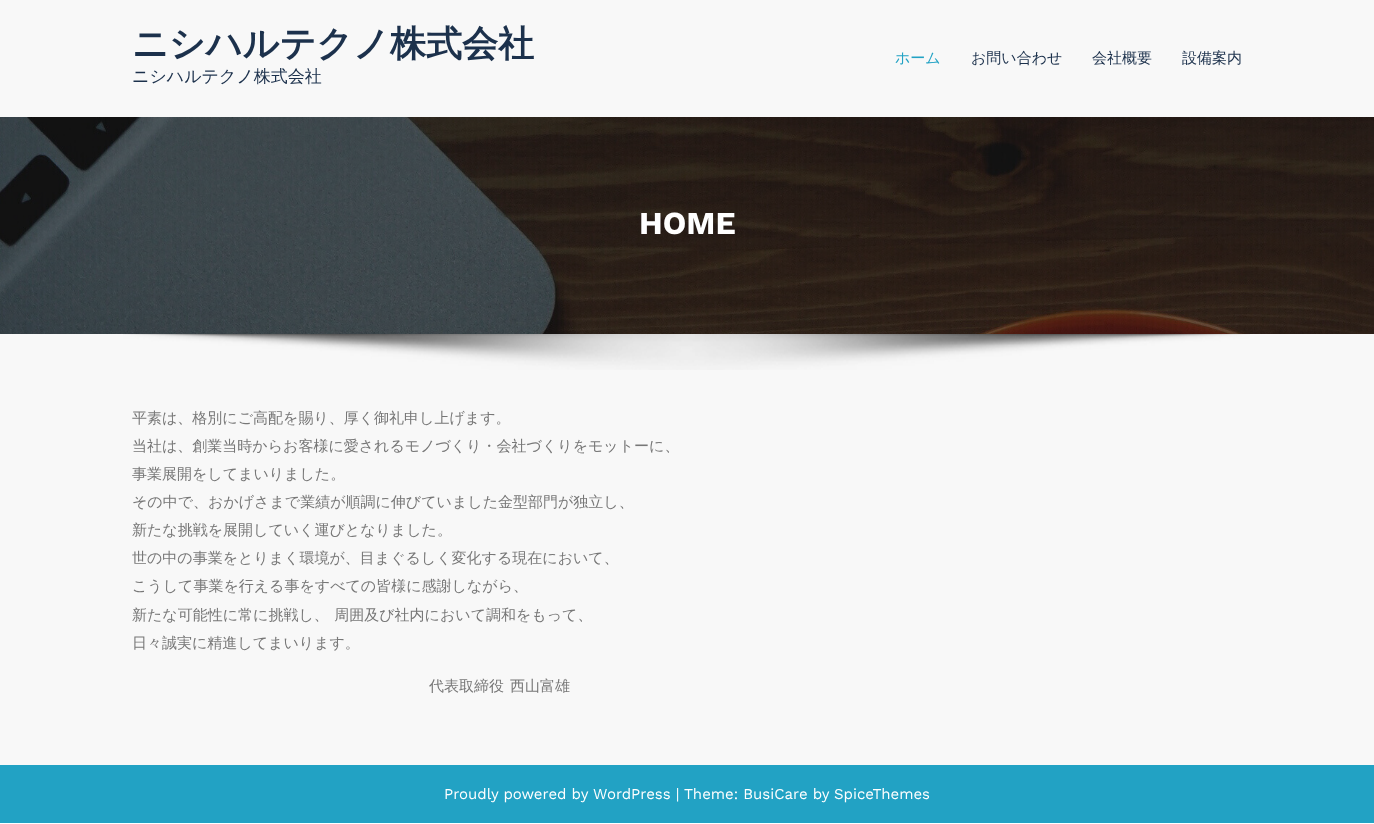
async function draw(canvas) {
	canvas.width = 1374;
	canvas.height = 824;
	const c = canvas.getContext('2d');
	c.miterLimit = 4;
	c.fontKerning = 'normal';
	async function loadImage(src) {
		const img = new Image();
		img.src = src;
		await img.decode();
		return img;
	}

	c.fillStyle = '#fff';
	c.fillRect(0, 0, 1374, 824);
	c.fillStyle = '#f8f8f8';
	c.fillRect(0, 0, 1374, 765);
	c.font = 'bold 36px WenQuanYi Zen Hei';
	c.fillStyle = '#1c314c';
	c.fillText('ニシハルテクノ株式会社', 132, 56);
	c.font = '500 17px WenQuanYi Zen Hei';
	c.fillText('ニシハルテクノ株式会社', 132, 82);
	c.font = '500 15px WenQuanYi Zen Hei';
	c.fillStyle = '#22a2c4';
	c.fillText('ホーム', 895, 63);
	c.fillStyle = '#1c314c';
	for (const [text, x, y] of [
		['お問い合わせ', 971, 63],
		['会社概要', 1092, 63],
		['設備案内', 1182, 63],
	]) {
		c.fillText(text, x, y);
	}
	c.drawImage(await loadImage('img1.png'), 0, 117, 1374, 217);
	c.font = 'bold 32px Work Sans';
	c.fillStyle = '#fff';
	c.fillText('HOME', 639, 234);
	c.drawImage(await loadImage('img2.png'), 123, 334, 1127, 36);
	c.font = '500 15px WenQuanYi Zen Hei';
	c.fillStyle = '#777';
	for (const [text, x, y] of [
		['平素は、格別にご高配を賜り、厚く御礼申し上げます。', 132, 423],
		['当社は、創業当時からお客様に愛されるモノづくり・会社づくりをモットーに、', 132, 451],
		['事業展開をしてまいりました。', 132, 479],
		['その中で、おかげさまで業績が順調に伸びていました金型部門が独立し、', 132, 507],
		['新たな挑戦を展開していく運びとなりました。', 132, 535],
		['世の中の事業をとりまく環境が、目まぐるしく変化する現在において、', 132, 563],
		['こうして事業を行える事をすべての皆様に感謝しながら、', 132, 591],
	]) {
		c.fillText(text, x, y);
	}
	c.wordSpacing = '1px';
	c.fillText('新たな可能性に常に挑戦し、 周囲及び社内において調和をもって、', 132, 620);
	c.wordSpacing = '0px';
	for (const [text, x, y] of [
		['日々誠実に精進してまいります。', 132, 648],
		['代表取締役', 429, 691],
		['西山富雄', 510, 691],
	]) {
		c.fillText(text, x, y);
	}
	c.fillStyle = '#22a2c4';
	c.fillRect(0, 765, 1374, 58);
	c.font = '15px Work Sans';
	c.fillStyle = '#fff';
	for (const [text, x, y] of [
		['Proudly powered by', 444, 799],
		['WordPress | Theme: BusiCare by', 593, 799],
		['SpiceThemes', 834, 799],
	]) {
		c.fillText(text, x, y);
	}
}

draw(document.querySelector('canvas'));
